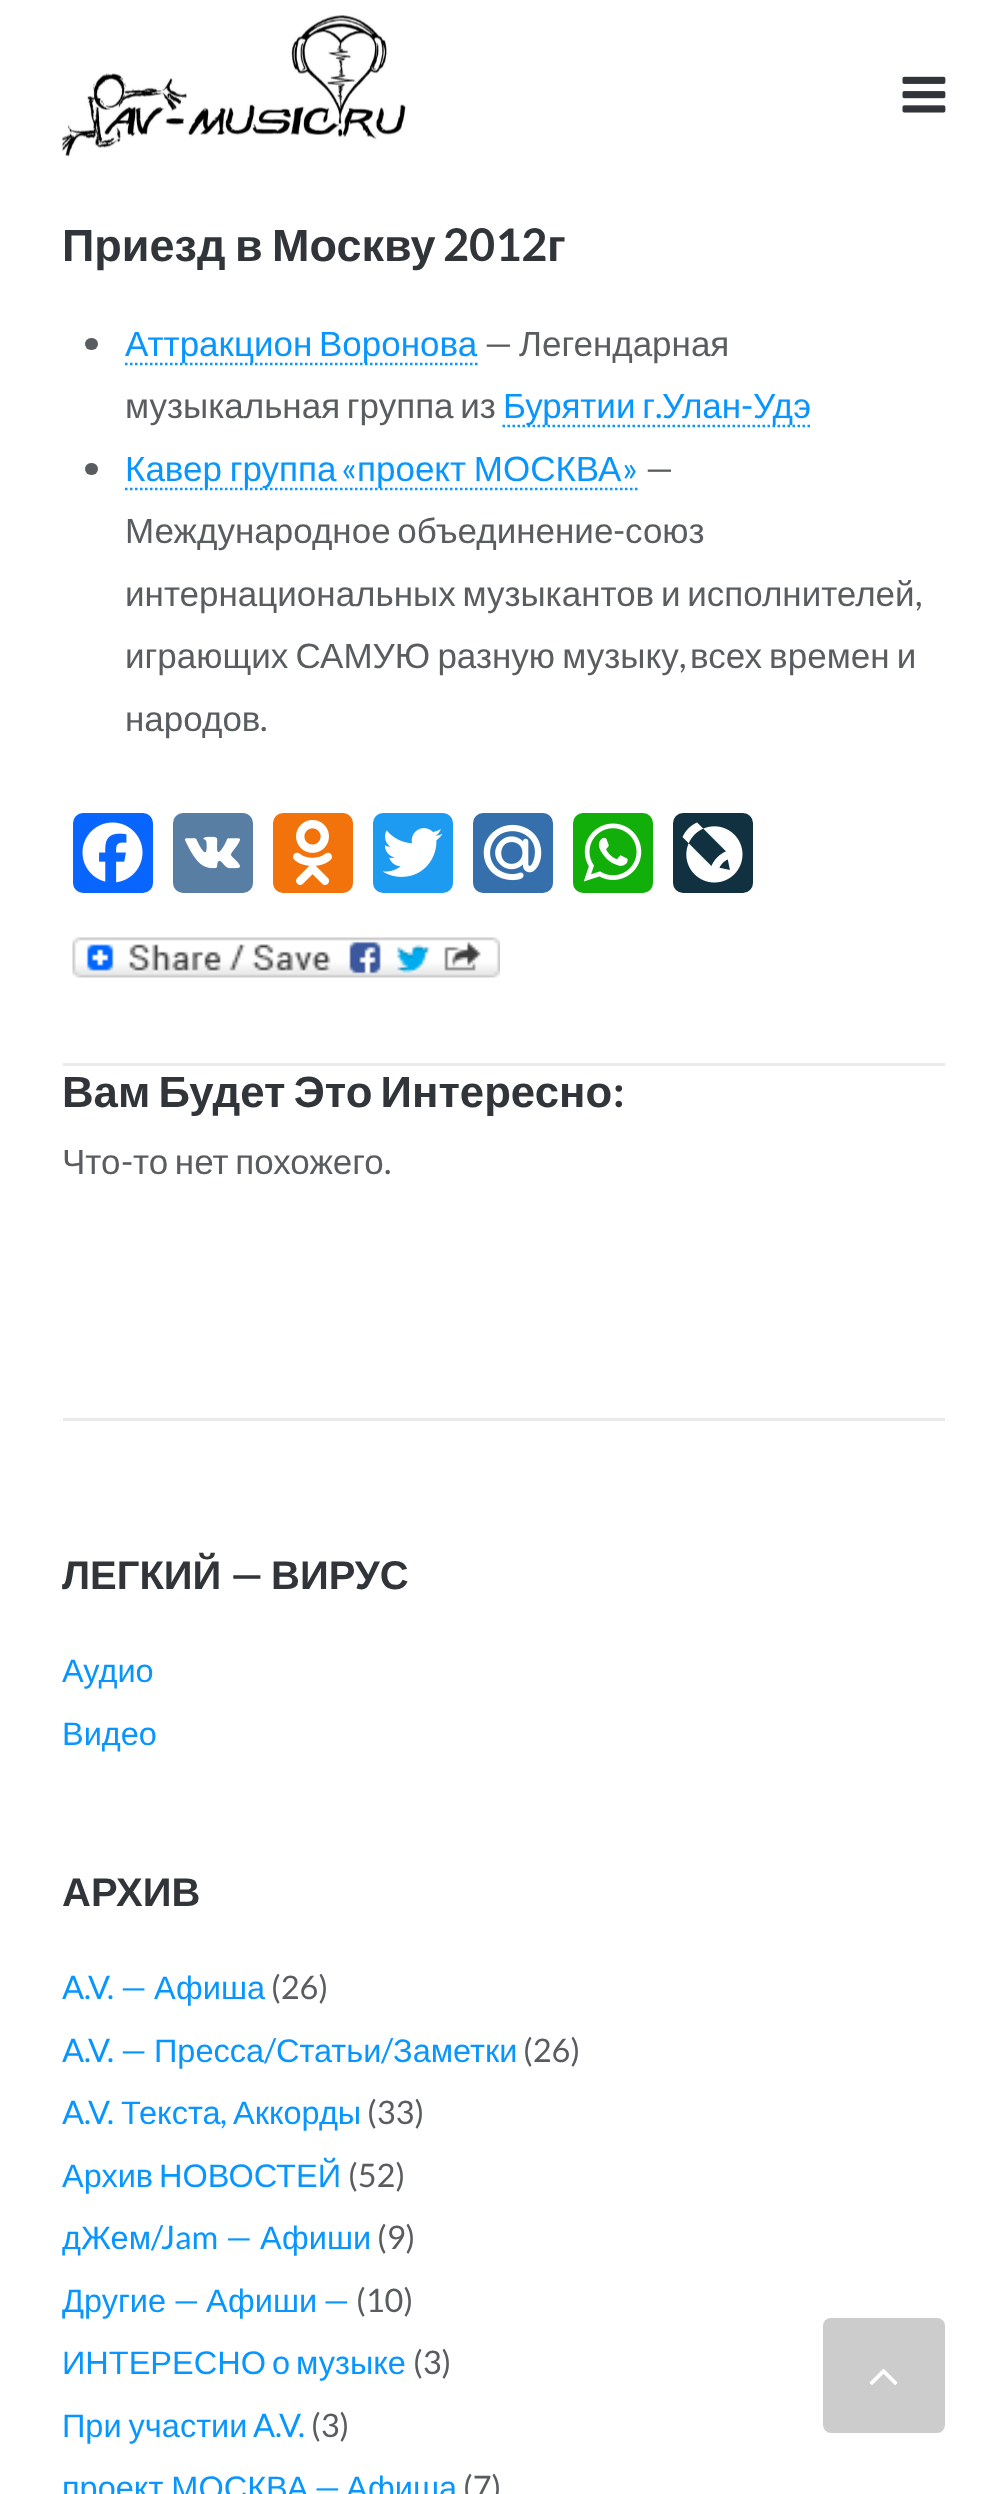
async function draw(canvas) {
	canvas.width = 1007;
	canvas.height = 2494;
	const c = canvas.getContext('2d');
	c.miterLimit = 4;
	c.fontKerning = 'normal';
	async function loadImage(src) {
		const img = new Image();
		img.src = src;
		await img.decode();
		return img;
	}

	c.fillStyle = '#fff';
	c.fillRect(0, 0, 1007, 2494);
	c.drawImage(await loadImage('img1.png'), 62, 15, 344, 142);
	c.drawImage(await loadImage('img2.png'), 902, 76, 44, 37);
	c.wordSpacing = '-3px';
	c.font = 'bold 45px Liberation Sans';
	c.fillStyle = '#313539';
	c.fillText('Приезд в Москву', 62, 261);
	c.wordSpacing = '0px';
	c.font = 'bold 45px Lato';
	c.fillText('2012', 443, 261);
	c.font = 'bold 45px Liberation Sans';
	c.fillText('г', 547, 261);
	c.fillStyle = '#5a5d60';
	c.beginPath();
	c.roundRect(85, 338, 13, 12, 6);
	c.fill();
	c.beginPath();
	c.moveTo(125, 364);
	c.lineTo(477.5, 364);
	c.strokeStyle = '#0896fe';
	c.lineWidth = 2.5;
	c.setLineDash([2.5, 2.5]);
	c.stroke();
	c.wordSpacing = '-3px';
	c.font = '35px Liberation Sans';
	c.fillStyle = '#0896fe';
	c.fillText('Аттракцион Воронова', 125, 356);
	c.wordSpacing = '0px';
	c.font = '35px Lato';
	c.fillStyle = '#5a5d60';
	c.fillText('—', 484, 356);
	c.font = '35px Liberation Sans';
	c.fillText('Легендарная', 519, 356);
	c.wordSpacing = '-3px';
	c.fillText('музыкальная группа из', 125, 418);
	c.beginPath();
	c.moveTo(502.5, 426);
	c.lineTo(812.5, 426);
	c.stroke();
	c.fillStyle = '#0896fe';
	c.fillText('Бурятии г', 503, 418);
	c.wordSpacing = '0px';
	c.fillText('Улан', 662, 418);
	c.font = '35px Lato';
	c.fillText('-', 741, 418);
	c.font = '35px Liberation Sans';
	c.fillText('Удэ', 753, 418);
	c.font = '35px Lato';
	c.fillText('.', 655, 418);
	c.fillStyle = '#5a5d60';
	c.beginPath();
	c.roundRect(85, 463, 13, 12, 6);
	c.fill();
	c.beginPath();
	c.moveTo(125, 489);
	c.lineTo(637.5, 489);
	c.stroke();
	c.wordSpacing = '-2px';
	c.font = '35px Liberation Sans';
	c.fillStyle = '#0896fe';
	c.fillText('Кавер группа', 125, 481);
	c.wordSpacing = '0px';
	c.font = '35px Lato';
	c.fillText('«', 341, 481);
	c.wordSpacing = '-2px';
	c.font = '35px Liberation Sans';
	c.fillText('проект МОСКВА', 357, 481);
	c.wordSpacing = '0px';
	c.font = '35px Lato';
	c.fillText('»', 622, 481);
	c.fillStyle = '#5a5d60';
	c.fillText('—', 645, 481);
	c.wordSpacing = '-3px';
	c.font = '35px Liberation Sans';
	c.fillText('Международное объединение', 125, 543);
	c.wordSpacing = '0px';
	c.font = '35px Lato';
	c.fillText('-', 613, 543);
	c.font = '35px Liberation Sans';
	c.fillText('союз', 625, 543);
	c.wordSpacing = '-3px';
	c.fillText('интернациональных музыкантов и исполнителей', 125, 606);
	c.wordSpacing = '0px';
	c.font = '35px Lato';
	c.fillText(',', 915, 606);
	c.wordSpacing = '-2.5px';
	c.font = '35px Liberation Sans';
	c.fillText('играющих САМУЮ разную музыку', 125, 668);
	c.wordSpacing = '0px';
	c.font = '35px Lato';
	c.fillText(',', 679, 668);
	c.wordSpacing = '-2.5px';
	c.font = '35px Liberation Sans';
	c.fillText('всех времен и', 690, 668);
	c.wordSpacing = '0px';
	c.fillText('народов', 125, 731);
	c.font = '35px Lato';
	c.fillText('.', 260, 731);
	c.fillStyle = '#0866ff';
	c.beginPath();
	c.roundRect(73, 813, 80, 80, 10);
	c.fill();
	c.drawImage(await loadImage('img3.png'), 82, 822, 61, 61);
	c.fillStyle = '#587ea3';
	c.beginPath();
	c.roundRect(173, 813, 80, 80, 10);
	c.fill();
	c.drawImage(await loadImage('img4.png'), 185, 836, 55, 33);
	c.fillStyle = '#f2720c';
	c.beginPath();
	c.roundRect(273, 813, 80, 80, 10);
	c.fill();
	c.drawImage(await loadImage('img5.png'), 293, 820, 39, 65);
	c.fillStyle = '#1d9bf0';
	c.beginPath();
	c.roundRect(373, 813, 80, 80, 10);
	c.fill();
	c.drawImage(await loadImage('img6.png'), 382, 828, 61, 49);
	c.fillStyle = '#356fac';
	c.beginPath();
	c.roundRect(473, 813, 80, 80, 10);
	c.fill();
	c.drawImage(await loadImage('img7.png'), 483, 824, 59, 57);
	c.fillStyle = '#12af0a';
	c.beginPath();
	c.roundRect(573, 813, 80, 80, 10);
	c.fill();
	c.drawImage(await loadImage('img8.png'), 583, 823, 59, 59);
	c.fillStyle = '#113140';
	c.beginPath();
	c.roundRect(673, 813, 80, 80, 10);
	c.fill();
	c.drawImage(await loadImage('img9.png'), 682, 822, 61, 61);
	c.drawImage(await loadImage('img10.png'), 72, 937, 428, 41);
	c.fillStyle = '#eaeaeb';
	c.fillRect(63, 1063, 882, 3);
	c.wordSpacing = '-4px';
	c.font = 'bold 43.75px Liberation Sans';
	c.fillStyle = '#313539';
	c.fillText('Вам Будет Это Интересно', 62, 1107);
	c.wordSpacing = '0px';
	c.font = 'bold 43.75px Lato';
	c.fillText(':', 613, 1107);
	c.font = '35px Liberation Sans';
	c.fillStyle = '#5a5d60';
	c.fillText('Что', 62, 1174);
	c.font = '35px Lato';
	c.fillText('-', 121, 1174);
	c.wordSpacing = '-3px';
	c.font = '35px Liberation Sans';
	c.fillText('то нет похожего', 133, 1174);
	c.wordSpacing = '0px';
	c.font = '35px Lato';
	c.fillText('.', 384, 1174);
	c.fillStyle = '#eaeaeb';
	c.fillRect(63, 1418, 882, 3);
	c.font = 'bold 40px Liberation Sans';
	c.fillStyle = '#313539';
	c.fillText('ЛЕГКИЙ', 62, 1589);
	c.font = 'bold 40px Lato';
	c.fillText('—', 230, 1589);
	c.font = 'bold 40px Liberation Sans';
	c.fillText('ВИРУС', 271, 1589);
	c.font = '32.5px Liberation Sans';
	c.fillStyle = '#0896fe';
	c.fillText('Аудио', 62, 1682);
	c.fillText('Видео', 62, 1745);
	c.font = 'bold 40px Liberation Sans';
	c.fillStyle = '#313539';
	c.fillText('АРХИВ', 62, 1906);
	c.font = '32.5px Lato';
	c.fillStyle = '#0896fe';
	c.fillText('A.V. —', 62, 1999);
	c.font = '32.5px Liberation Sans';
	c.fillText('Афиша', 154, 1999);
	c.font = '32.5px Lato';
	c.fillStyle = '#5a5d60';
	c.fillText('(26)', 271, 1999);
	c.fillStyle = '#0896fe';
	c.fillText('A.V. —', 62, 2062);
	c.font = '32.5px Liberation Sans';
	c.fillText('Пресса', 154, 2062);
	c.font = '32.5px Lato';
	c.fillText('/', 264, 2062);
	c.font = '32.5px Liberation Sans';
	c.fillText('Статьи', 276, 2062);
	c.font = '32.5px Lato';
	c.fillText('/', 381, 2062);
	c.font = '32.5px Liberation Sans';
	c.fillText('Заметки', 393, 2062);
	c.font = '32.5px Lato';
	c.fillStyle = '#5a5d60';
	c.fillText('(26)', 523, 2062);
	c.fillStyle = '#0896fe';
	c.fillText('A.V.', 62, 2124);
	c.font = '32.5px Liberation Sans';
	c.fillText('Текста', 121, 2124);
	c.font = '32.5px Lato';
	c.fillText(',', 220, 2124);
	c.font = '32.5px Liberation Sans';
	c.fillText('Аккорды', 233, 2124);
	c.font = '32.5px Lato';
	c.fillStyle = '#5a5d60';
	c.fillText('(33)', 367, 2124);
	c.wordSpacing = '-3px';
	c.font = '32.5px Liberation Sans';
	c.fillStyle = '#0896fe';
	c.fillText('Архив НОВОСТЕЙ', 62, 2187);
	c.wordSpacing = '0px';
	c.font = '32.5px Lato';
	c.fillStyle = '#5a5d60';
	c.fillText('(52)', 348, 2187);
	c.font = '32.5px Liberation Sans';
	c.fillStyle = '#0896fe';
	c.fillText('дЖем', 62, 2249);
	c.wordSpacing = '1px';
	c.font = '32.5px Lato';
	c.fillText('/Jam —', 151, 2249);
	c.wordSpacing = '0px';
	c.font = '32.5px Liberation Sans';
	c.fillText('Афиши', 260, 2249);
	c.font = '32.5px Lato';
	c.fillStyle = '#5a5d60';
	c.fillText('(9)', 377, 2249);
	c.font = '32.5px Liberation Sans';
	c.fillStyle = '#0896fe';
	c.fillText('Другие', 62, 2312);
	c.font = '32.5px Lato';
	c.fillText('—', 173, 2312);
	c.font = '32.5px Liberation Sans';
	c.fillText('Афиши', 206, 2312);
	c.font = '32.5px Lato';
	c.fillText('—', 323, 2312);
	c.fillStyle = '#5a5d60';
	c.fillText('(10)', 356, 2312);
	c.wordSpacing = '-3px';
	c.font = '32.5px Liberation Sans';
	c.fillStyle = '#0896fe';
	c.fillText('ИНТЕРЕСНО о музыке', 62, 2374);
	c.wordSpacing = '0px';
	c.font = '32.5px Lato';
	c.fillStyle = '#5a5d60';
	c.fillText('(3)', 413, 2374);
	c.wordSpacing = '-2px';
	c.font = '32.5px Liberation Sans';
	c.fillStyle = '#0896fe';
	c.fillText('При участии', 62, 2437);
	c.wordSpacing = '0px';
	c.font = '32.5px Lato';
	c.fillText('A.V.', 253, 2437);
	c.fillStyle = '#5a5d60';
	c.fillText('(3)', 311, 2437);
	c.wordSpacing = '-1px';
	c.font = '32.5px Liberation Sans';
	c.fillStyle = '#0896fe';
	c.fillText('проект МОСКВА', 62, 2499);
	c.wordSpacing = '0px';
	c.font = '32.5px Lato';
	c.fillText('—', 314, 2499);
	c.font = '32.5px Liberation Sans';
	c.fillText('Афиша', 346, 2499);
	c.font = '32.5px Lato';
	c.fillStyle = '#5a5d60';
	c.fillText('(7)', 463, 2499);
	c.fillStyle = '#ccc';
	c.beginPath();
	c.roundRect(823, 2318, 122, 115, 8);
	c.fill();
	c.drawImage(await loadImage('img11.png'), 869, 2369, 29, 16);
}

draw(document.querySelector('canvas'));
